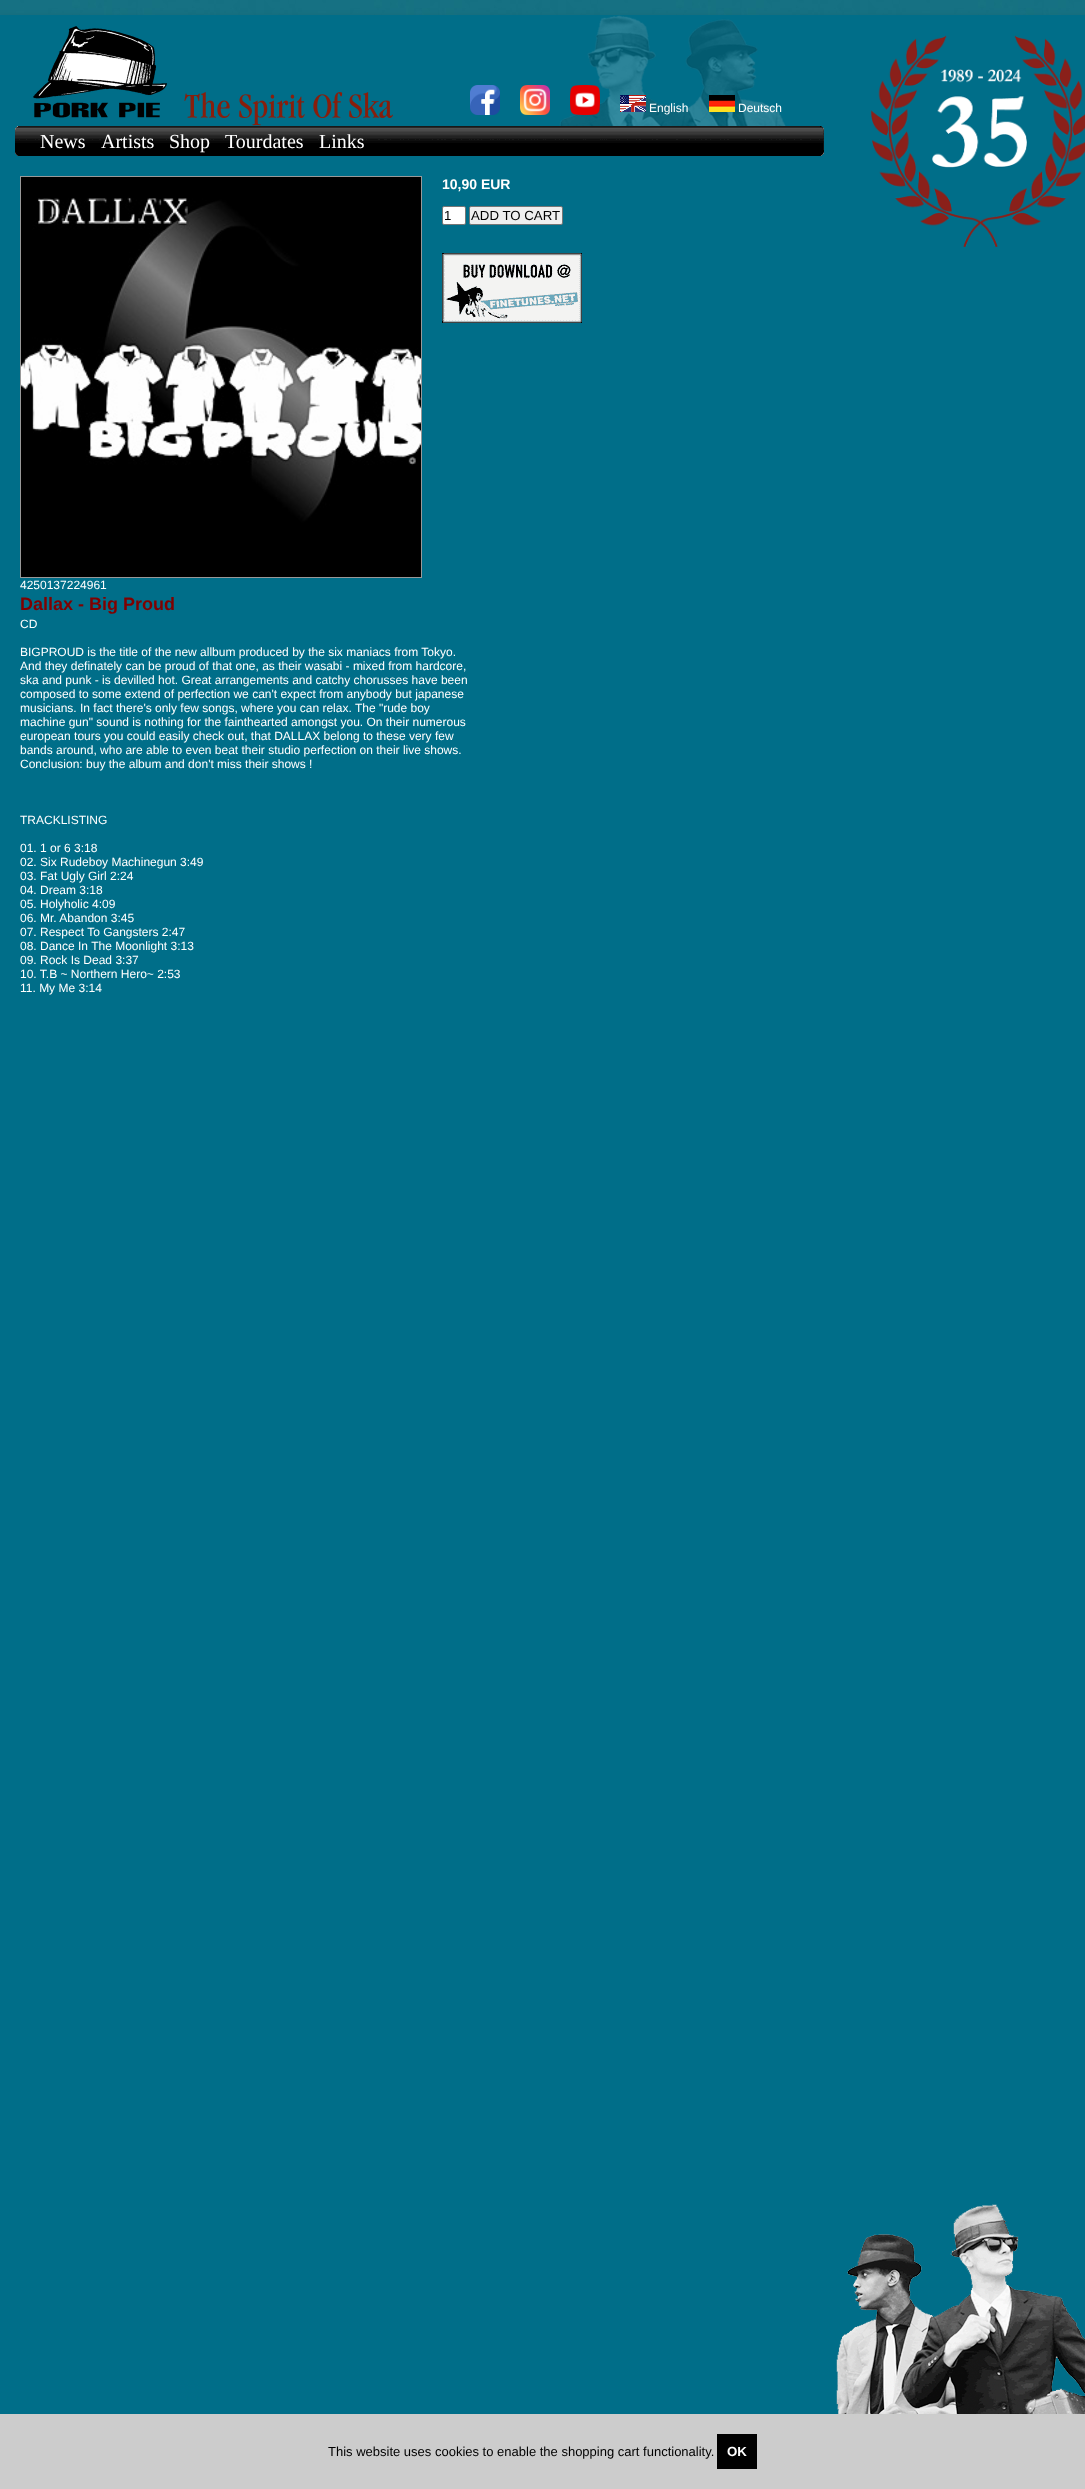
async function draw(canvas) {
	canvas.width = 1085;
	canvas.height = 2489;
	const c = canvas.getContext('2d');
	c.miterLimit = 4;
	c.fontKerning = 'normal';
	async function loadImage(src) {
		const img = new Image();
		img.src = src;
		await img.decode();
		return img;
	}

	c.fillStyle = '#fff';
	c.fillRect(0, 0, 1085, 2489);
	c.drawImage(await loadImage('img1.png'), 0, 0, 1085, 15);
	c.fillStyle = '#00000033';
	c.filter = 'blur(5px)';
	c.beginPath();
	c.rect(-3, 20, 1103, 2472);
	c.fill();
	c.filter = 'none';
	c.fillStyle = '#006e89';
	c.fillRect(0, 15, 1085, 2399);
	c.drawImage(await loadImage('img2.png'), 33, 15, 753, 111);
	c.drawImage(await loadImage('img3.png'), 871, 35, 214, 212);
	c.drawImage(await loadImage('img4.png'), 470, 85, 30, 30);
	c.drawImage(await loadImage('img5.png'), 520, 85, 30, 30);
	c.drawImage(await loadImage('img6.png'), 570, 85, 30, 30);
	c.drawImage(await loadImage('img7.png'), 620, 95, 26, 17);
	c.font = '12px Liberation Sans';
	c.fillStyle = '#fff';
	c.fillText('English', 649, 112);
	c.drawImage(await loadImage('img8.png'), 709, 95, 26, 17);
	c.fillText('Deutsch', 738, 112);
	c.drawImage(await loadImage('img9.png'), 15, 126, 809, 30);
	c.font = '20px Liberation Serif';
	for (const [text, x, y] of [
		['News', 40, 148],
		['Artists', 101, 148],
		['Shop', 169, 148],
		['Tourdates', 225, 148],
		['Links', 319, 148],
	]) {
		c.fillText(text, x, y);
	}
	c.strokeStyle = '#999';
	c.strokeRect(20.5, 176.5, 401, 401);
	c.drawImage(await loadImage('img10.png'), 21, 177, 400, 400);
	c.font = 'bold 14px Liberation Sans';
	c.fillText('10,90 EUR', 442, 189);
	c.beginPath();
	c.roundRect(442.5, 206.5, 23, 18, 1.5);
	c.fill();
	c.strokeStyle = '#767676';
	c.stroke();
	c.font = '13.25px Liberation Sans';
	c.fillStyle = '#000';
	c.fillText('1', 444, 220);
	c.fillStyle = '#efefef';
	c.beginPath();
	c.roundRect(469.5, 206.5, 93, 18, 1.5);
	c.fill();
	c.stroke();
	c.fillStyle = '#000';
	c.fillText('ADD TO CART', 471, 220);
	c.drawImage(await loadImage('img11.png'), 442, 253, 140, 70);
	c.font = '12px Liberation Sans';
	c.fillStyle = '#fff';
	c.fillText('4250137224961', 20, 589);
	c.font = 'bold 18px Liberation Sans';
	c.fillStyle = '#800000';
	c.fillText('Dallax - Big Proud', 20, 610);
	c.font = '12px Liberation Sans';
	c.fillStyle = '#fff';
	for (const [text, x, y] of [
		['CD', 20, 628],
		['BIGPROUD is the title of the new allbum produced by the six maniacs from Tokyo.', 20, 656],
		['And they definately can be proud of that one, as their wasabi - mixed from hardcore,', 20, 670],
		['ska and punk - is devilled hot. Great arrangements and catchy chorusses have been', 20, 684],
		['composed to some extend of perfection we can\'t expect from anybody but japanese', 20, 698],
		['musicians. In fact there\'s only few songs, where you can relax. The "rude boy', 20, 712],
		['machine gun" sound is nothing for the fainthearted amongst you. On their numerous', 20, 726],
		['european tours you could easily check out, that DALLAX belong to these very few', 20, 740],
		['bands around, who are able to even beat their studio perfection on their live shows.', 20, 754],
		['Conclusion: buy the album and don\'t miss their shows !', 20, 768],
		['TRACKLISTING', 20, 824],
		['01. 1 or 6 3:18', 20, 852],
		['02. Six Rudeboy Machinegun 3:49', 20, 866],
		['03. Fat Ugly Girl 2:24', 20, 880],
		['04. Dream 3:18', 20, 894],
		['05. Holyholic 4:09', 20, 908],
		['06. Mr. Abandon 3:45', 20, 922],
		['07. Respect To Gangsters 2:47', 20, 936],
		['08. Dance In The Moonlight 3:13', 20, 950],
		['09. Rock Is Dead 3:37', 20, 964],
		['10. T.B ~ Northern Hero~ 2:53', 20, 978],
		['11. My Me 3:14', 20, 992],
	]) {
		c.fillText(text, x, y);
	}
	c.drawImage(await loadImage('img12.png'), 836, 2204, 249, 210);
	c.fillStyle = '#ccc';
	c.fillRect(0, 2414, 1085, 75);
	c.font = '13px Liberation Sans';
	c.fillStyle = '#000';
	c.fillText('This website uses cookies to enable the shopping cart functionality.', 328, 2456);
	c.fillRect(717, 2434, 40, 35);
	c.font = 'bold 13.25px Liberation Sans';
	c.fillStyle = '#fff';
	c.fillText('OK', 727, 2456);
}

draw(document.querySelector('canvas'));
